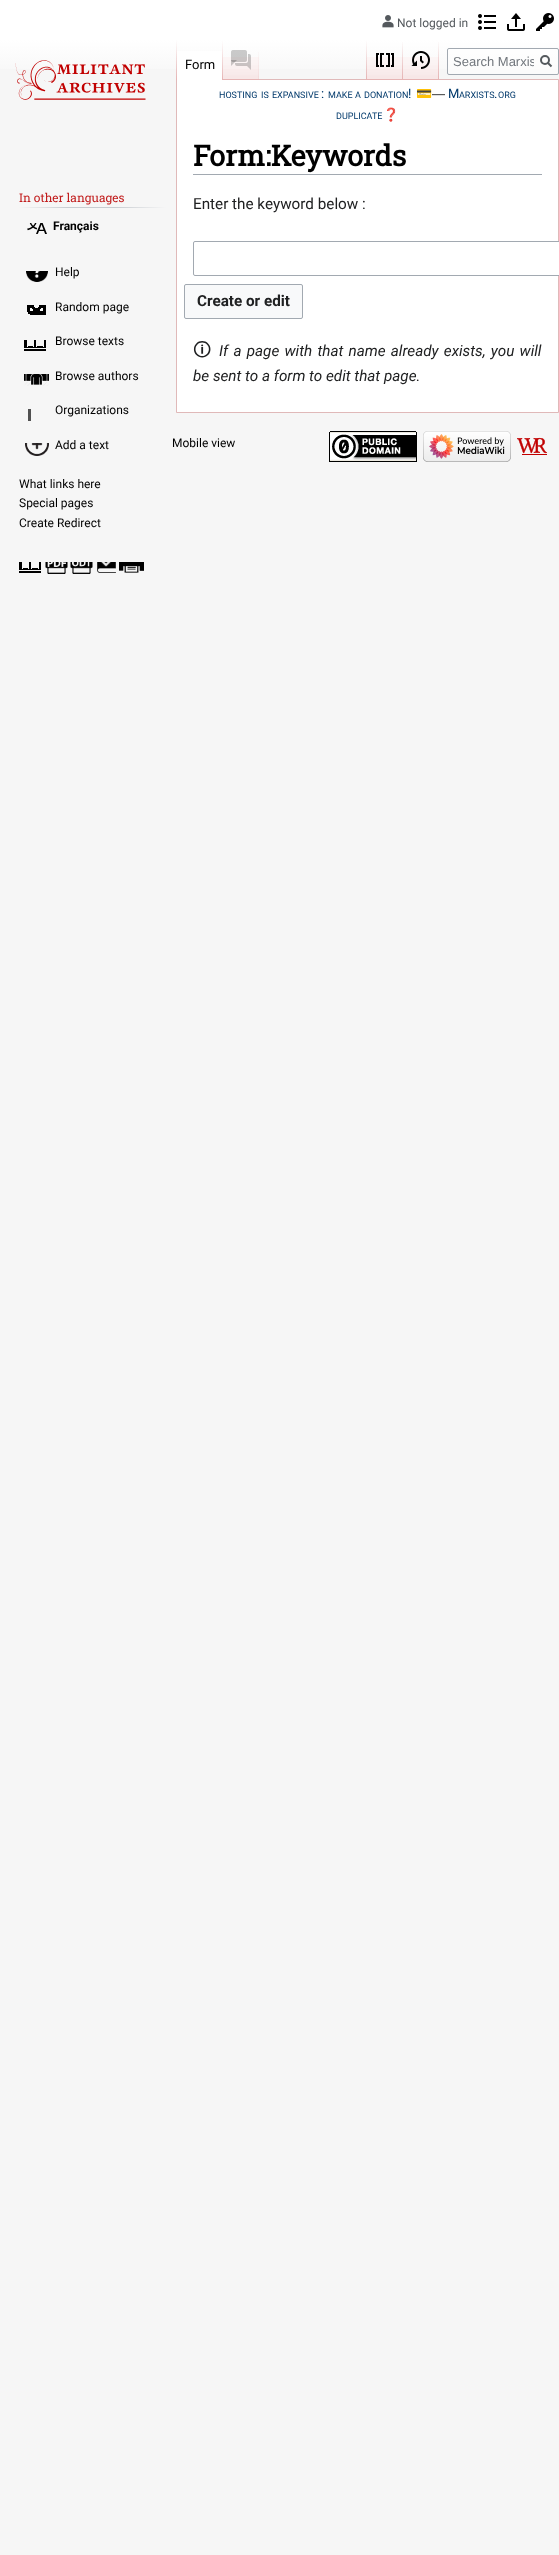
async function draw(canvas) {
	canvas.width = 559;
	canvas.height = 2555;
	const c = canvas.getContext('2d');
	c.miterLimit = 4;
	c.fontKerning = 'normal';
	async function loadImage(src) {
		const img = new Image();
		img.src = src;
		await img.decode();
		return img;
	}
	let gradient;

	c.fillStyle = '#f6f6f6';
	c.fillRect(0, 0, 559, 2555);
	gradient = c.createLinearGradient(280, 0, 280, 80);
	gradient.addColorStop(0.5, '#fff');
	gradient.addColorStop(1, '#f6f6f6');
	c.fillStyle = gradient;
	c.fillRect(0, 0, 559, 69);
	c.drawImage(await loadImage('img1.png'), 382, 15, 12, 13);
	c.font = '12px Roboto';
	c.fillStyle = '#54595d';
	c.fillText('Not logged in', 397, 27);
	c.drawImage(await loadImage('img2.png'), 478, 14, 18, 16);
	c.drawImage(await loadImage('img3.png'), 507, 13, 18, 18);
	c.drawImage(await loadImage('img4.png'), 536, 13, 18, 18);
	c.fillStyle = '#fff';
	c.beginPath();
	c.rect(176.5, 79.5, 382, 333);
	c.fill();
	c.strokeStyle = '#e0b9b9';
	c.stroke();
	gradient = c.createLinearGradient(177, 40, 177, 80);
	gradient.addColorStop(0, '#e6b4b400');
	gradient.addColorStop(1, '#e6b4b4');
	c.fillStyle = gradient;
	c.fillRect(176, 40, 1, 40);
	c.fillStyle = '#fff';
	c.fillRect(177, 51, 45, 29);
	gradient = c.createLinearGradient(223, 40, 223, 80);
	gradient.addColorStop(0, '#fff');
	gradient.addColorStop(1, '#e6b4b4');
	c.fillStyle = gradient;
	c.fillRect(222, 40, 1, 40);
	c.font = '13px Roboto';
	c.fillStyle = '#000';
	c.fillText('Form', 185, 69);
	c.drawImage(await loadImage('img5.png'), 223, 57, 36, 23);
	c.drawImage(await loadImage('img6.png'), 231, 50, 20, 20);
	c.drawImage(await loadImage('img7.png'), 258, 52, 1, 27);
	gradient = c.createLinearGradient(367, 40, 367, 80);
	gradient.addColorStop(0, '#e6b4b400');
	gradient.addColorStop(1, '#e6b4b4');
	c.fillStyle = gradient;
	c.fillRect(366, 40, 1, 40);
	c.drawImage(await loadImage('img5.png'), 367, 57, 36, 23);
	c.drawImage(await loadImage('img8.png'), 376, 53, 18, 14);
	c.drawImage(await loadImage('img9.png'), 402, 42, 1, 37);
	c.drawImage(await loadImage('img5.png'), 403, 57, 36, 23);
	c.drawImage(await loadImage('img10.png'), 411, 51, 19, 18);
	c.drawImage(await loadImage('img9.png'), 438, 42, 1, 37);
	c.fillStyle = '#ffffff80';
	c.beginPath();
	c.roundRect(447.5, 48.5, 111, 26, 1.5);
	c.fill();
	c.strokeStyle = '#a2a9b1';
	c.stroke();
	c.save();
	c.beginPath();
	c.rect(453, 54, 81, 15);
	c.clip();
	c.font = '13px Liberation Sans';
	c.fillStyle = '#72777d';
	c.fillText('Search Marxis', 453, 66);
	c.restore();
	c.beginPath();
	c.moveTo(551.5, 66.5);
	c.lineTo(547.5, 62.5);
	c.strokeStyle = '#54595d';
	c.lineWidth = 2;
	c.stroke();
	c.beginPath();
	c.arc(545, 60, 4, 0, 2 * Math.PI);
	c.stroke();
	c.drawImage(await loadImage('img11.png'), 15, 60, 131, 40);
	gradient = c.createLinearGradient(19, 208, 166, 208);
	gradient.addColorStop(0, '#f6f6f6');
	gradient.addColorStop(0.33, '#c8ccd1');
	gradient.addColorStop(0.66, '#c8ccd1');
	gradient.addColorStop(1, '#f6f6f6');
	c.fillStyle = gradient;
	c.fillRect(19, 207, 147, 1);
	c.font = '12px Roboto Slab';
	c.fillStyle = '#c11c1c';
	c.fillText('In other languages', 19, 202);
	c.drawImage(await loadImage('img12.png'), 27, 223, 20, 11);
	c.font = 'bold 12px Roboto';
	c.fillStyle = '#000';
	c.fillText('Français', 53, 230);
	c.drawImage(await loadImage('img13.png'), 26, 271, 22, 11);
	c.font = '12px Roboto';
	c.fillText('Help', 55, 276);
	c.drawImage(await loadImage('img14.png'), 27, 305, 19, 10);
	c.fillText('Random page', 55, 311);
	c.drawImage(await loadImage('img15.png'), 24, 340, 22, 11);
	c.fillText('Browse texts', 55, 345);
	c.drawImage(await loadImage('img16.png'), 24, 374, 25, 12);
	c.fillText('Browse authors', 55, 380);
	c.fillStyle = '#515151';
	c.fillRect(28, 409, 3, 12);
	c.fillStyle = '#000';
	c.fillText('Organizations', 55, 414);
	c.drawImage(await loadImage('img17.png'), 25, 443, 24, 13);
	for (const [text, x, y] of [
		['Add a text', 55, 449],
		['What links here', 19, 488],
		['Special pages', 19, 507],
		['Create Redirect', 19, 527],
	]) {
		c.fillText(text, x, y);
	}
	c.drawImage(await loadImage('img15.png'), 19, 562, 22, 11);
	c.drawImage(await loadImage('img18.png'), 45, 562, 23, 12);
	c.drawImage(await loadImage('img19.png'), 70, 562, 23, 12);
	c.drawImage(await loadImage('img20.png'), 97, 562, 19, 11);
	c.drawImage(await loadImage('img21.png'), 119, 562, 25, 11);
	c.font = '9px Roboto';
	c.fillStyle = '#00396b';
	for (const [text, x, y] of [
		['HOSTING', 219, 98],
		['IS', 261, 98],
		['EXPANSIVE', 272, 98],
	]) {
		c.fillText(text, x, y);
	}
	c.font = '13px Roboto';
	c.fillText(':', 321, 98);
	c.font = '9px Roboto';
	for (const [text, x, y] of [
		['MAKE', 328, 98],
		['A', 355, 98],
		['DONATION', 364, 98],
	]) {
		c.fillText(text, x, y);
	}
	c.font = '13px Roboto';
	c.fillText('!', 408, 98);
	c.font = '13px Noto Color Emoji';
	c.fillStyle = '#202122';
	c.fillText('💳', 416, 98);
	c.font = '13px Liberation Sans';
	c.fillText('―', 432, 98);
	c.font = '13px Roboto';
	c.fillStyle = '#00396b';
	c.fillText('M', 448, 98);
	c.font = '9px Roboto';
	c.fillText('ARXISTS', 459, 98);
	c.fillText('ORG', 498, 98);
	c.font = '13px Roboto';
	c.fillText('.', 494, 98);
	c.font = '9px Roboto';
	c.fillText('DUPLICATE', 336, 119);
	c.font = '13px Noto Color Emoji';
	c.fillStyle = '#202122';
	c.fillText('❓', 383, 119);
	c.fillStyle = '#a2a9b1';
	c.fillRect(193, 174, 349, 1);
	c.font = 'bold 28.75px Roboto Slab';
	c.fillStyle = '#000';
	c.fillText('Form:Keywords', 193, 166);
	c.font = '15.25px Roboto';
	c.fillStyle = '#202122';
	c.fillText('Enter the keyword below :', 193, 209);
	c.fillStyle = '#fff';
	c.beginPath();
	c.roundRect(193.5, 241.5, 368, 34, 1.5);
	c.fill();
	c.strokeStyle = '#a2a9b1';
	c.lineWidth = 1;
	c.stroke();
	c.fillStyle = '#f8f9fa';
	c.beginPath();
	c.roundRect(184.5, 284.5, 118, 34, 1.5);
	c.fill();
	c.stroke();
	c.font = 'bold 15.25px Roboto';
	c.fillStyle = '#202122';
	c.fillText('Create or edit', 197, 306);
	c.font = '18px "Noto Sans Symbols 2"';
	c.fillText('🛈', 193, 356);
	c.wordSpacing = '1.5px';
	c.font = 'italic 15.25px Roboto';
	c.fillText('If a page with that name already exists, you will', 219, 356);
	c.wordSpacing = '0px';
	c.fillText('be sent to a form to edit that page.', 193, 381);
	c.font = '12px Roboto';
	c.fillStyle = '#000';
	c.fillText('Mobile view', 172, 447);
	c.drawImage(await loadImage('img22.png'), 329, 431, 88, 31);
	c.drawImage(await loadImage('img23.png'), 423, 431, 88, 31);
	c.drawImage(await loadImage('img24.png'), 517, 437, 30, 18);
}

draw(document.querySelector('canvas'));
